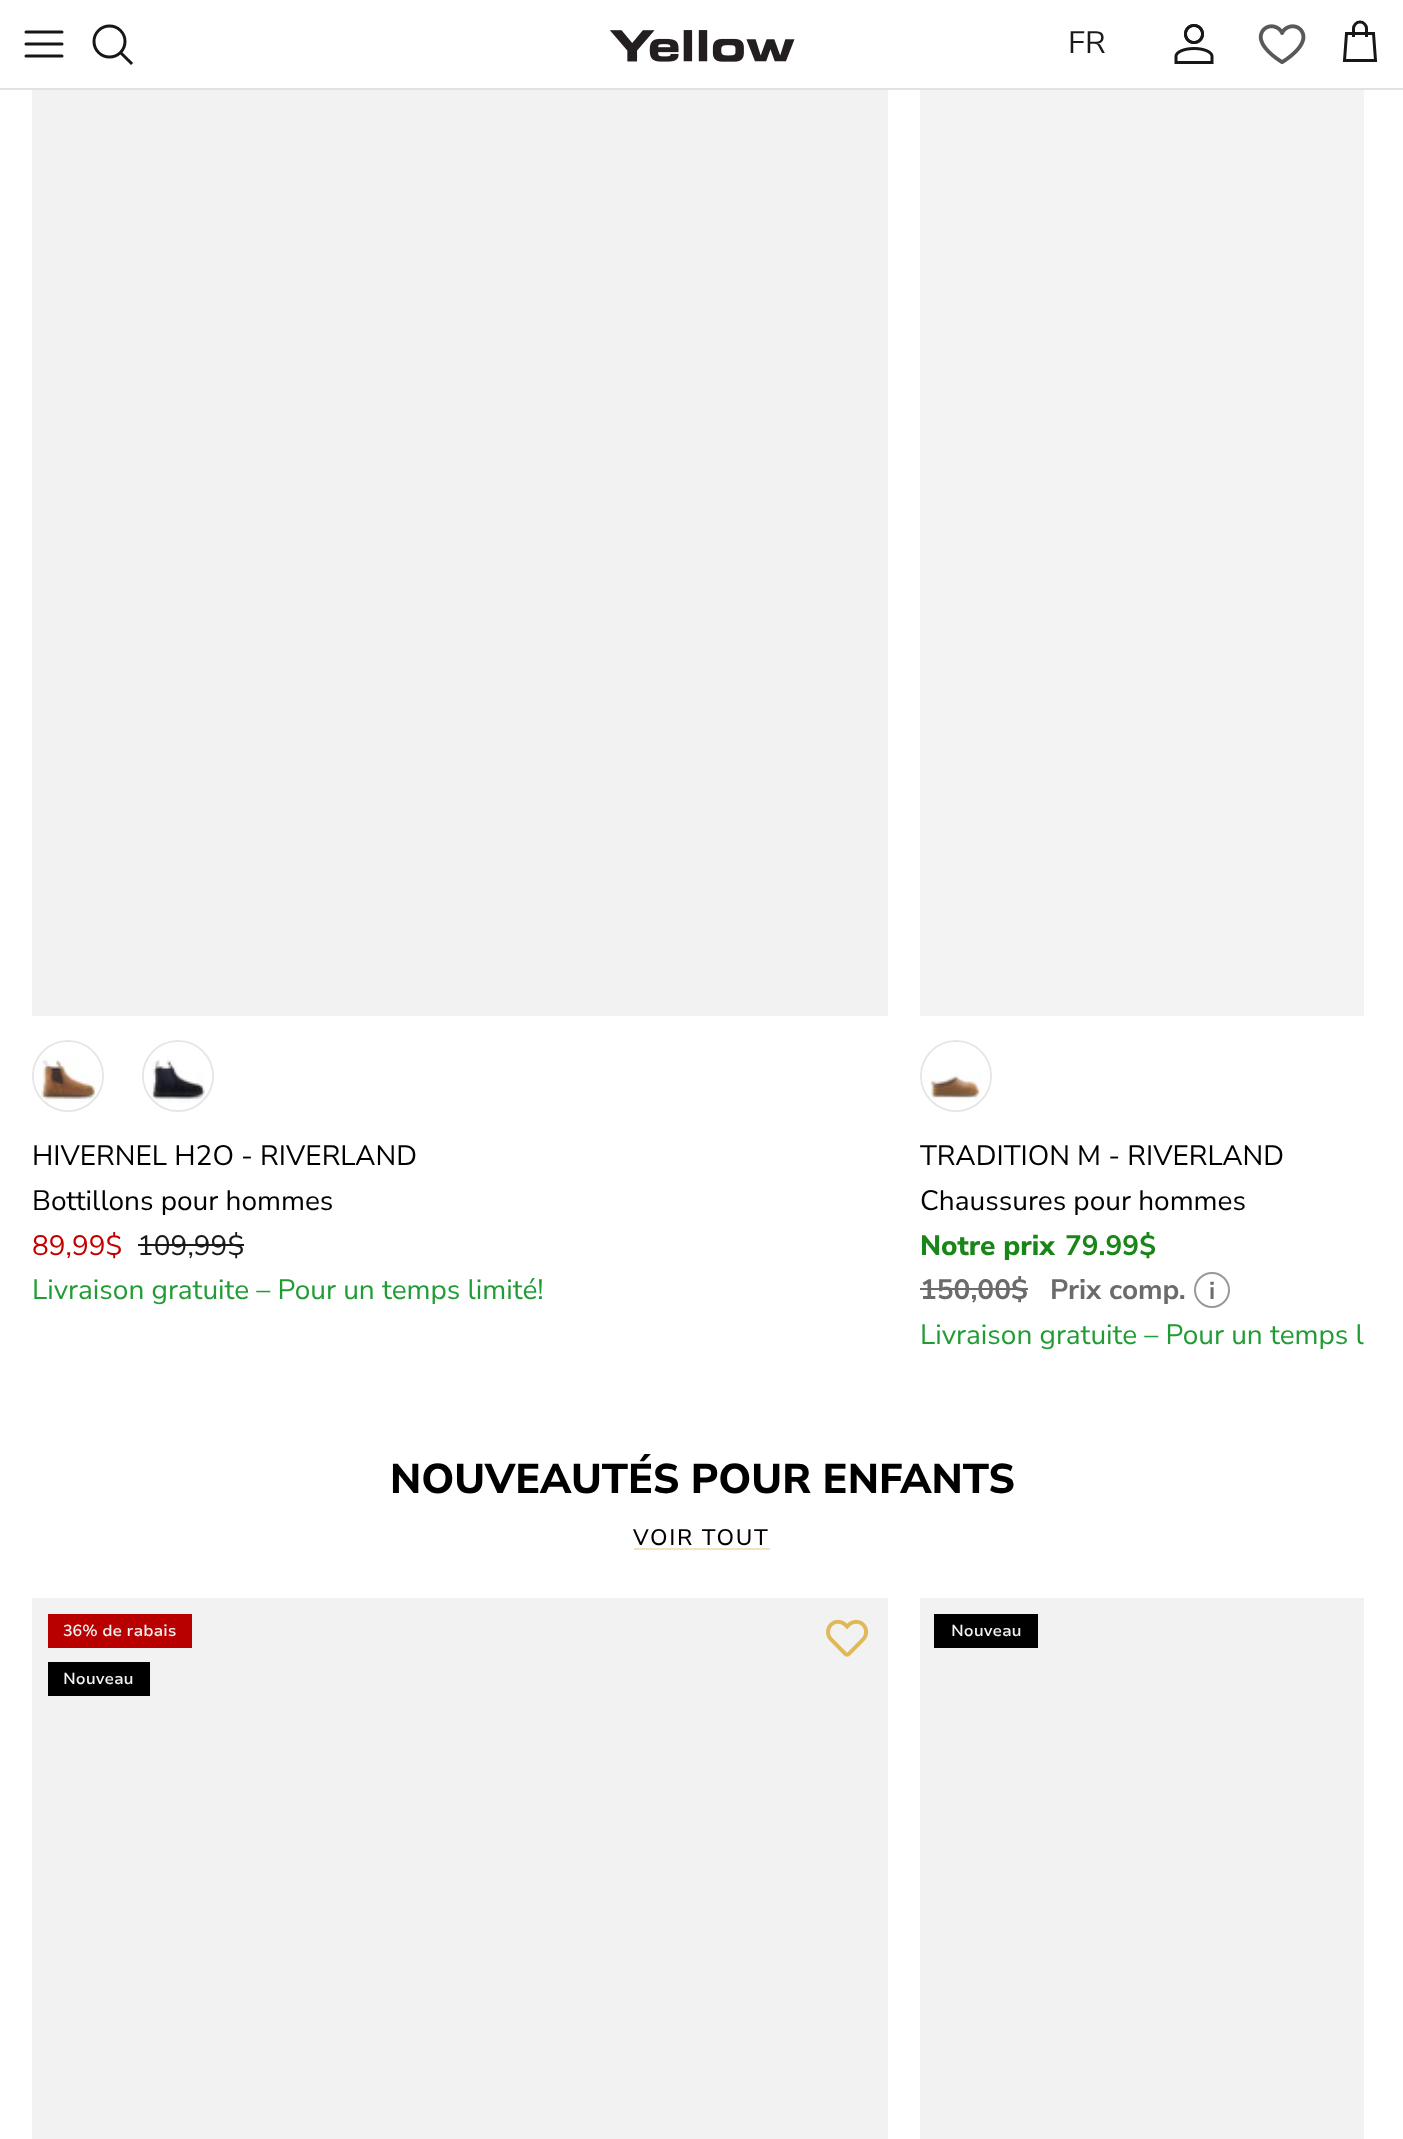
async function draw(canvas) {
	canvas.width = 1403;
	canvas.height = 2139;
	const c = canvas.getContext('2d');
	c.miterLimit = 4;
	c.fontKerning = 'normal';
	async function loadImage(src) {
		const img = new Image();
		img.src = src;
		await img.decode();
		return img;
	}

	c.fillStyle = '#fff';
	c.fillRect(0, 0, 1403, 2139);
	for (const [x, y, w, h, color] of [
		[920, 1598, 444, 541, '#f2f2f2'],
		[32, 1598, 856, 541, '#f2f2f2'],
		[32, 90, 856, 926, '#f2f2f2'],
		[0, 88, 1403, 2, '#dfe3e8'],
	]) {
		c.fillStyle = color;
		c.fillRect(x, y, w, h);
	}
	c.beginPath();
	c.moveTo(26, 44);
	c.lineTo(62, 44);
	c.moveTo(26, 32);
	c.lineTo(62, 32);
	c.moveTo(26, 56);
	c.lineTo(62, 56);
	c.strokeStyle = '#171717';
	c.lineWidth = 3;
	c.lineCap = 'round';
	c.lineJoin = 'round';
	c.stroke();
	c.beginPath();
	c.arc(109.5, 41.5, 15.5, 0, 2 * Math.PI);
	c.stroke();
	c.beginPath();
	c.moveTo(122, 54);
	c.lineTo(131, 63);
	c.lineCap = 'square';
	c.lineJoin = 'miter';
	c.stroke();
	c.drawImage(await loadImage('img1.png'), 609, 30, 186, 32);
	c.font = '31px Nunito Sans';
	c.fillStyle = '#1a1a1a';
	c.fillText('FR', 1068, 53);
	c.drawImage(await loadImage('img2.png'), 1174, 24, 40, 40);
	c.drawImage(await loadImage('img3.png'), 1258, 24, 48, 40);
	c.beginPath();
	c.moveTo(1366.5, 37);
	c.lineTo(1366.5, 28.5);
	c.bezierCurveTo(1366.5, 25, 1363.5, 22, 1360, 22);
	c.bezierCurveTo(1356.5, 22, 1353.5, 25, 1353.5, 28.5);
	c.lineTo(1353.5, 37);
	c.moveTo(1346.5, 33.5);
	c.lineTo(1373.5, 33.5);
	c.lineTo(1375.5, 60.5);
	c.lineTo(1344.5, 60.5);
	c.closePath();
	c.lineCap = 'butt';
	c.stroke();
	c.beginPath();
	c.arc(68, 1076, 35, 0, 2 * Math.PI);
	c.strokeStyle = '#e6e6e6';
	c.lineWidth = 2;
	c.stroke();
	c.drawImage(await loadImage('img4.png'), 34, 1042, 68, 68);
	c.beginPath();
	c.arc(178, 1076, 35, 0, 2 * Math.PI);
	c.stroke();
	c.drawImage(await loadImage('img5.png'), 144, 1042, 68, 68);
	c.font = '28px Nunito Sans';
	c.fillStyle = '#000';
	c.fillText('HIVERNEL H2O - RIVERLAND', 32, 1165);
	c.fillText('Bottillons pour hommes', 32, 1210);
	c.fillStyle = '#c20000';
	c.fillText('89,99$', 32, 1255);
	c.fillStyle = '#1a1a1a';
	c.fillText('109,99$', 137, 1255);
	c.fillRect(138, 1244, 106, 2);
	c.fillStyle = '#219c35';
	c.fillText('Livraison gratuite – Pour un temps limité!', 32, 1299);
	c.fillStyle = '#f3f3f3';
	c.fillRect(920, 90, 444, 926);
	c.beginPath();
	c.arc(956, 1076, 35, 0, 2 * Math.PI);
	c.stroke();
	c.drawImage(await loadImage('img6.png'), 922, 1042, 68, 68);
	c.fillStyle = '#000';
	c.fillText('TRADITION M - RIVERLAND', 920, 1165);
	c.fillText('Chaussures pour hommes', 920, 1210);
	c.font = '800 28px Nunito Sans';
	c.fillStyle = '#1a8619';
	c.fillText('Notre prix', 920, 1255);
	c.font = 'bold 28px Nunito Sans';
	c.fillText('79.99$', 1065, 1255);
	c.fillStyle = '#6b6b6b';
	c.fillText('150,00$', 920, 1299);
	c.fillRect(920, 1288, 108, 2);
	c.fillText('Prix comp.', 1050, 1299);
	c.beginPath();
	c.arc(1212, 1290, 17, 0, 2 * Math.PI);
	c.strokeStyle = '#999';
	c.stroke();
	c.font = 'bold 24px Nunito Sans';
	c.fillText('i', 1209, 1299);
	c.font = '28px Nunito Sans';
	c.fillStyle = '#219c35';
	c.fillText('Livraison gratuite – Pour un temps l', 920, 1344);
	c.font = '800 41.5px Nunito Sans';
	c.fillStyle = '#000';
	c.fillText('NOUVEAUTÉS POUR ENFANTS', 390, 1493);
	c.letterSpacing = '1.75px';
	c.font = '500 22.5px Nunito Sans';
	c.fillText('VOIR TOUT', 633, 1545);
	c.fillStyle = '#f2e3bc';
	c.fillRect(634, 1548, 136, 2);
	c.fillStyle = '#b80000';
	c.fillRect(48, 1614, 144, 34);
	c.letterSpacing = '0px';
	c.font = '600 16px Nunito Sans';
	c.fillStyle = '#f2f2f2';
	c.fillText('36% de rabais', 63, 1636);
	c.fillStyle = '#000';
	c.fillRect(48, 1662, 102, 34);
	c.fillStyle = '#f2f2f2';
	c.fillText('Nouveau', 63, 1684);
	c.drawImage(await loadImage('img7.png'), 826, 1619, 43, 38);
	c.fillStyle = '#000';
	c.fillRect(934, 1614, 104, 34);
	c.fillStyle = '#f2f2f2';
	c.fillText('Nouveau', 951, 1636);
}

draw(document.querySelector('canvas'));
